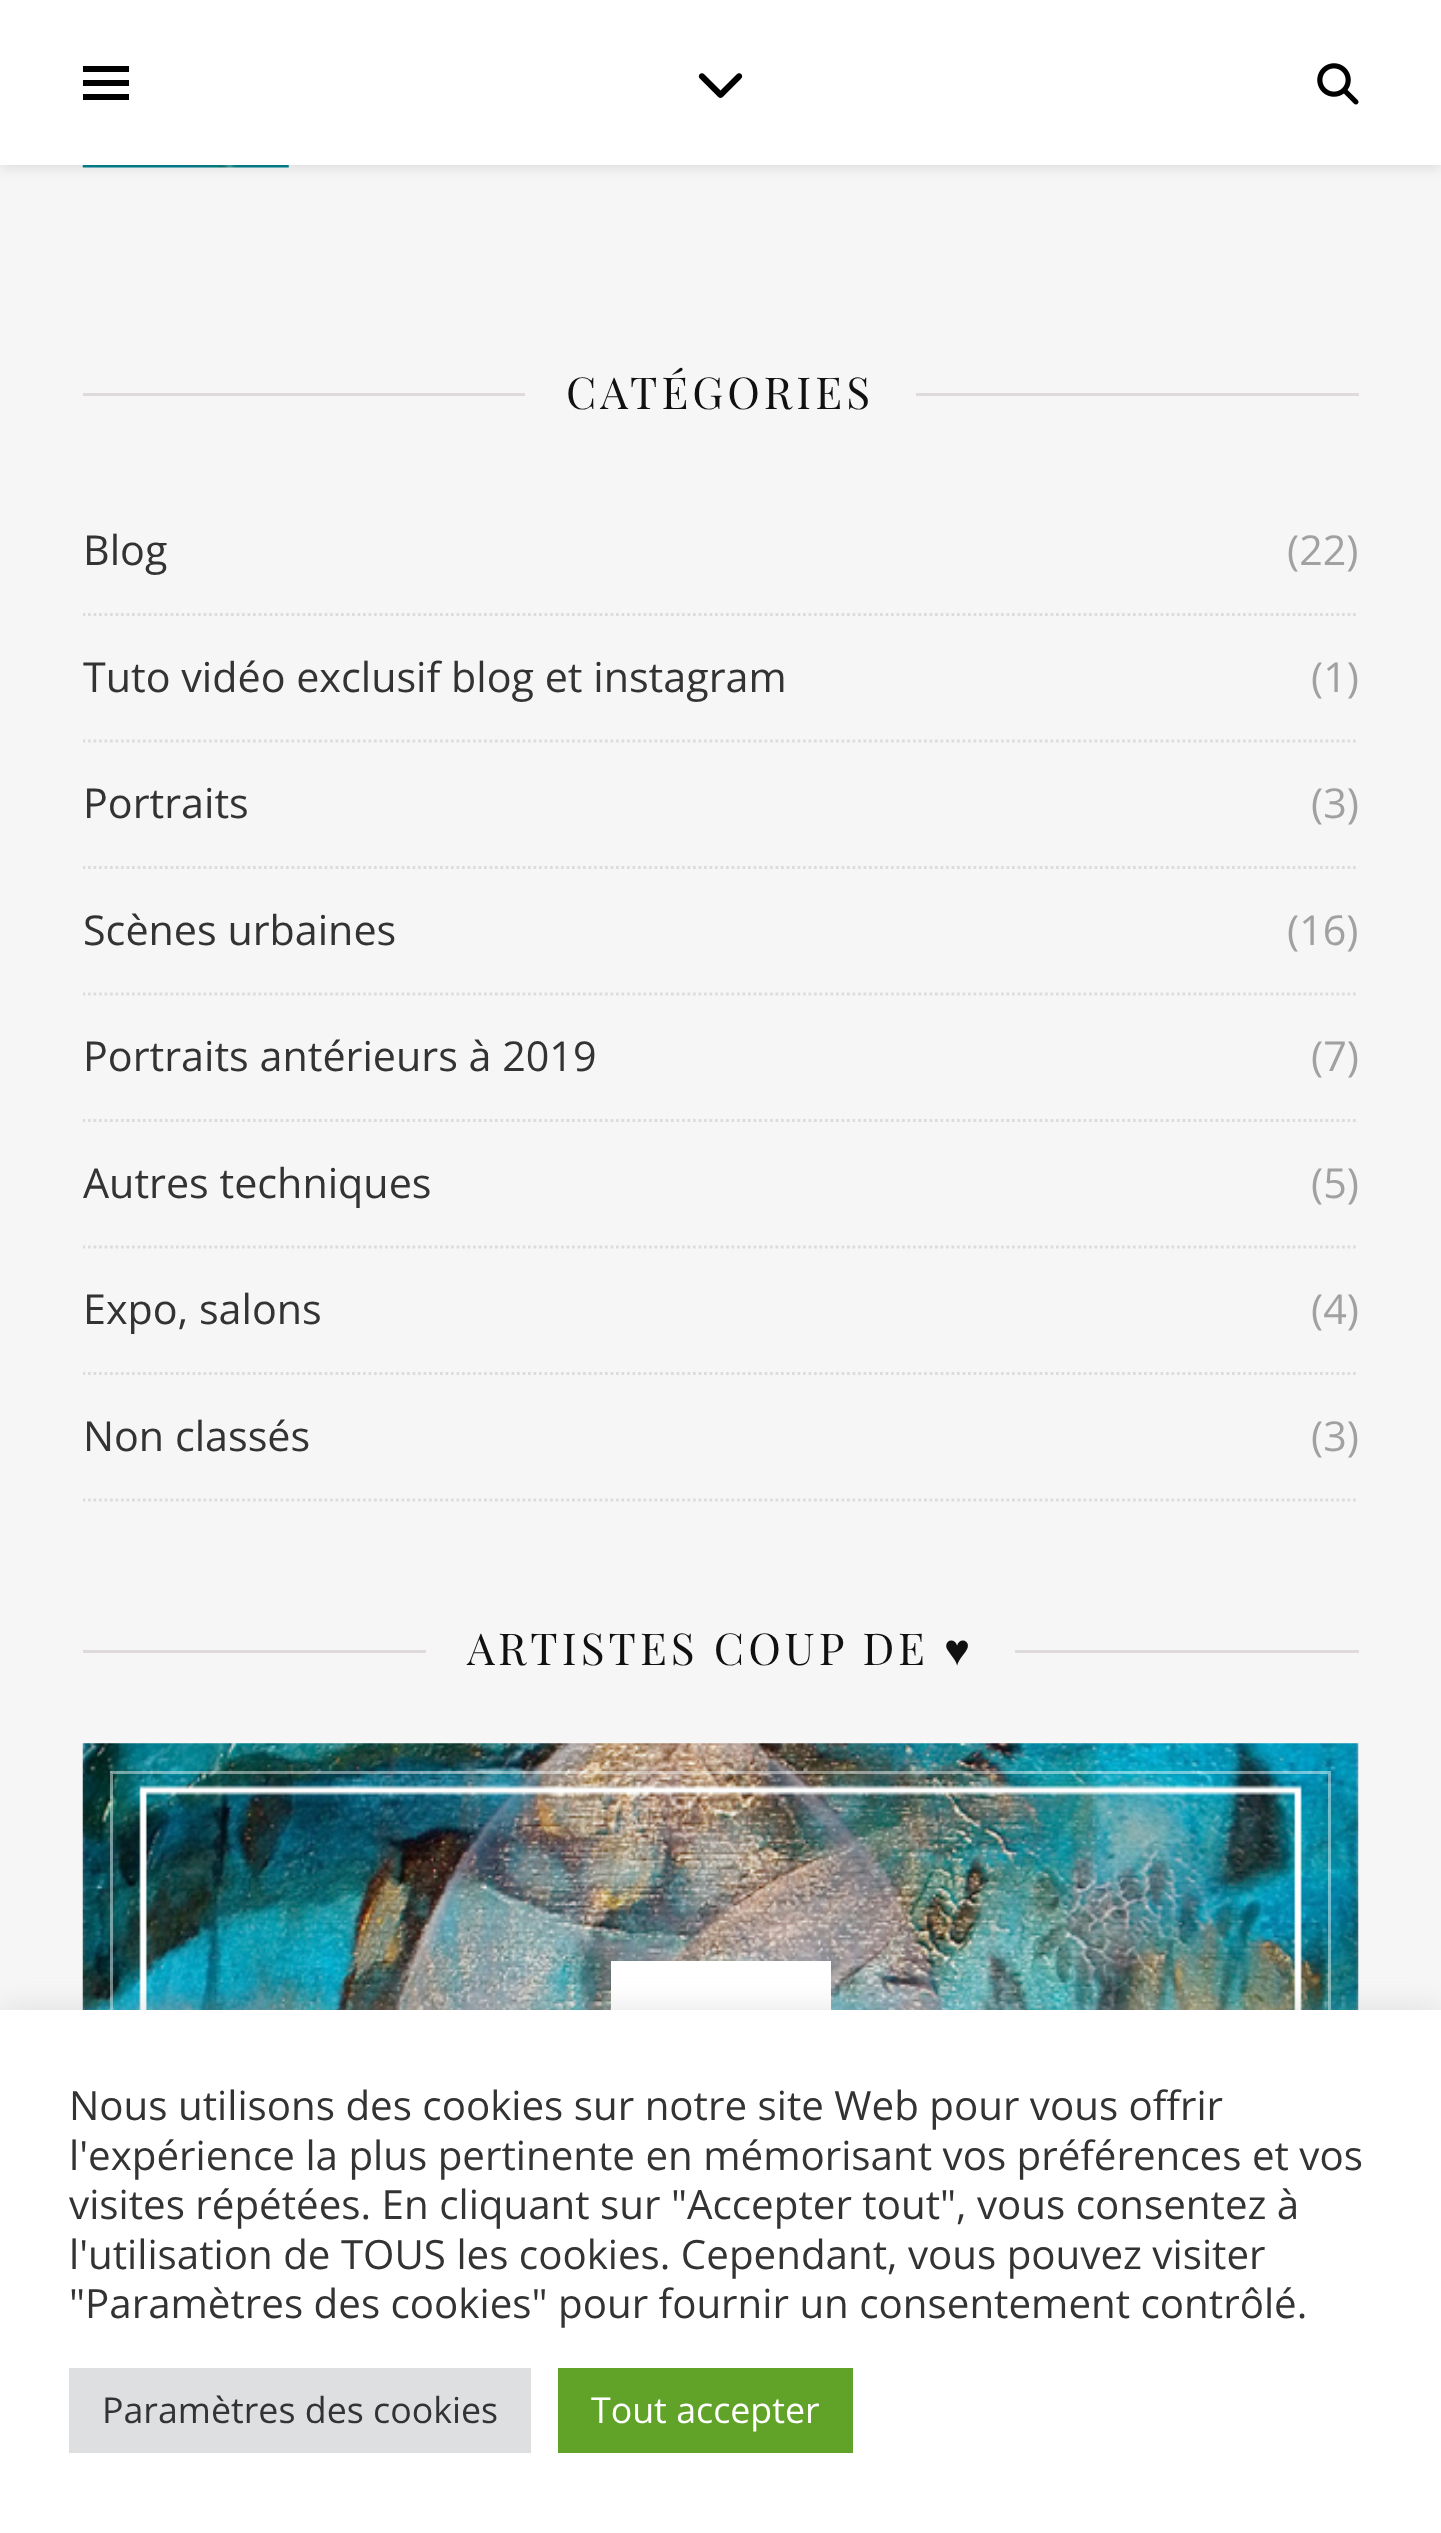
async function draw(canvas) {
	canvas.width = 1441;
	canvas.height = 2533;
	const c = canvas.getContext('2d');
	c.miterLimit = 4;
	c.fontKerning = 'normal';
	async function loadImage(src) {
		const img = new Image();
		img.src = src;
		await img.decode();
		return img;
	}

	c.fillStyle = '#f6f6f6';
	c.fillRect(0, 0, 1441, 2533);
	c.drawImage(await loadImage('img3.png'), 82, 165, 207, 3);
	c.fillStyle = '#0000001a';
	c.filter = 'blur(7px)';
	c.beginPath();
	c.rect(0, 3, 1441, 165);
	c.fill();
	c.filter = 'none';
	for (const [x, y, w, h, color] of [
		[0, 0, 1441, 165, '#fff'],
		[83, 66, 46, 6, '#000'],
		[83, 80, 46, 6, '#000'],
		[83, 94, 46, 6, '#000'],
	]) {
		c.fillStyle = color;
		c.fillRect(x, y, w, h);
	}
	c.drawImage(await loadImage('img1.png'), 698, 73, 45, 25);
	c.drawImage(await loadImage('img2.png'), 1317, 63, 42, 42);
	c.fillStyle = '#e0dbdb';
	c.fillRect(83, 393, 442, 3);
	c.letterSpacing = '4.1px';
	c.font = '44px Playfair Display';
	c.fillStyle = '#111';
	c.fillText('CATÉGORIES', 566, 409);
	c.fillStyle = '#e0dbdb';
	c.fillRect(916, 393, 443, 3);
	c.save();
	c.beginPath();
	c.rect(83, 355, 1276, 1147);
	c.clip();
	c.beginPath();
	c.moveTo(82.5, 614.5);
	c.lineTo(1358.5, 614.5);
	c.strokeStyle = '#e0dbdb';
	c.lineWidth = 2.8;
	c.setLineDash([2.75, 2.75]);
	c.stroke();
	c.restore();
	c.letterSpacing = '0px';
	c.font = '41.25px Open Sans';
	c.fillStyle = '#333';
	c.fillText('Blog', 83, 565);
	c.fillStyle = '#a1a1a1';
	c.fillText('(22)', 1287, 565);
	c.save();
	c.beginPath();
	c.rect(83, 355, 1276, 1147);
	c.clip();
	c.beginPath();
	c.moveTo(82.5, 741);
	c.lineTo(1358.5, 741);
	c.strokeStyle = '#e0dbdb';
	c.lineWidth = 2.8;
	c.setLineDash([2.75, 2.75]);
	c.stroke();
	c.restore();
	c.save();
	c.beginPath();
	c.rect(83, 616, 704, 124);
	c.clip();
	c.fillStyle = '#333';
	c.fillText('Tuto vidéo exclusif blog et instagram', 83, 692);
	c.restore();
	c.fillText('(1)', 1311, 692);
	c.save();
	c.beginPath();
	c.rect(83, 355, 1276, 1147);
	c.clip();
	c.beginPath();
	c.moveTo(82.5, 867.5);
	c.lineTo(1358.5, 867.5);
	c.strokeStyle = '#e0dbdb';
	c.lineWidth = 2.8;
	c.setLineDash([2.75, 2.75]);
	c.stroke();
	c.restore();
	c.fillStyle = '#333';
	c.fillText('Portraits', 83, 818);
	c.fillStyle = '#a1a1a1';
	c.fillText('(3)', 1311, 818);
	c.save();
	c.beginPath();
	c.rect(83, 355, 1276, 1147);
	c.clip();
	c.beginPath();
	c.moveTo(82.5, 994);
	c.lineTo(1358.5, 994);
	c.strokeStyle = '#e0dbdb';
	c.lineWidth = 2.8;
	c.setLineDash([2.75, 2.75]);
	c.stroke();
	c.restore();
	c.fillStyle = '#333';
	c.fillText('Scènes urbaines', 83, 945);
	c.fillStyle = '#a1a1a1';
	c.fillText('(16)', 1287, 945);
	c.save();
	c.beginPath();
	c.rect(83, 355, 1276, 1147);
	c.clip();
	c.beginPath();
	c.moveTo(82.5, 1120.5);
	c.lineTo(1358.5, 1120.5);
	c.strokeStyle = '#e0dbdb';
	c.lineWidth = 2.8;
	c.setLineDash([2.75, 2.75]);
	c.stroke();
	c.restore();
	c.fillStyle = '#333';
	c.fillText('Portraits antérieurs à 2019', 83, 1071);
	c.fillStyle = '#a1a1a1';
	c.fillText('(7)', 1311, 1071);
	c.save();
	c.beginPath();
	c.rect(83, 355, 1276, 1147);
	c.clip();
	c.beginPath();
	c.moveTo(82.5, 1247);
	c.lineTo(1358.5, 1247);
	c.strokeStyle = '#e0dbdb';
	c.lineWidth = 2.8;
	c.setLineDash([2.75, 2.75]);
	c.stroke();
	c.restore();
	c.fillStyle = '#333';
	c.fillText('Autres techniques', 83, 1198);
	c.fillStyle = '#a1a1a1';
	c.fillText('(5)', 1311, 1198);
	c.save();
	c.beginPath();
	c.rect(83, 355, 1276, 1147);
	c.clip();
	c.beginPath();
	c.moveTo(82.5, 1373.5);
	c.lineTo(1358.5, 1373.5);
	c.strokeStyle = '#e0dbdb';
	c.lineWidth = 2.8;
	c.setLineDash([2.75, 2.75]);
	c.stroke();
	c.restore();
	c.fillStyle = '#333';
	c.fillText('Expo, salons', 83, 1324);
	c.fillStyle = '#a1a1a1';
	c.fillText('(4)', 1311, 1324);
	c.save();
	c.beginPath();
	c.rect(83, 355, 1276, 1147);
	c.clip();
	c.beginPath();
	c.moveTo(82.5, 1500);
	c.lineTo(1358.5, 1500);
	c.strokeStyle = '#e0dbdb';
	c.lineWidth = 2.8;
	c.setLineDash([2.75, 2.75]);
	c.stroke();
	c.restore();
	c.fillStyle = '#333';
	c.fillText('Non classés', 83, 1451);
	c.fillStyle = '#a1a1a1';
	c.fillText('(3)', 1311, 1451);
	c.fillStyle = '#e0dbdb';
	c.fillRect(83, 1650, 343, 3);
	c.letterSpacing = '4.1px';
	c.font = '44px Playfair Display';
	c.fillStyle = '#111';
	c.fillText('ARTISTES COUP DE', 467, 1665);
	c.font = '44px Liberation Serif';
	c.fillText('♥', 944, 1665);
	c.fillStyle = '#e0dbdb';
	c.fillRect(1015, 1650, 344, 3);
	c.drawImage(await loadImage('img4.png'), 82, 1743, 1277, 267);
	c.strokeStyle = '#ffffff73';
	c.lineWidth = 3;
	c.strokeRect(111.5, 1772.5, 1218, 476);
	c.fillStyle = '#fff';
	c.fillRect(611, 1961, 220, 49);
	c.fillStyle = '#acabab4d';
	c.filter = 'blur(14px)';
	c.beginPath();
	c.rect(0, 2008, 1441, 525);
	c.fill();
	c.filter = 'none';
	c.fillStyle = '#fff';
	c.fillRect(0, 2010, 1441, 523);
	c.letterSpacing = '0px';
	c.font = '40.3px Open Sans';
	c.fillStyle = '#333';
	for (const [text, x, y] of [
		['Nous utilisons des cookies sur notre site Web pour vous offrir', 69, 2120],
		['l\'expérience la plus pertinente en mémorisant vos préférences et vos', 69, 2170],
		['visites répétées. En cliquant sur "Accepter tout", vous consentez à', 69, 2219],
		['l\'utilisation de TOUS les cookies. Cependant, vous pouvez visiter', 69, 2269],
		['"Paramètres des cookies" pour fournir un consentement contrôlé.', 69, 2318],
	]) {
		c.fillText(text, x, y);
	}
	c.fillStyle = '#dedfe0';
	c.fillRect(69, 2368, 462, 85);
	c.font = '35.75px Open Sans';
	c.fillStyle = '#333';
	c.fillText('Paramètres des cookies', 102, 2423);
	c.fillStyle = '#61a229';
	c.fillRect(558, 2368, 295, 85);
	c.fillStyle = '#fff';
	c.fillText('Tout accepter', 591, 2423);
}

draw(document.querySelector('canvas'));
